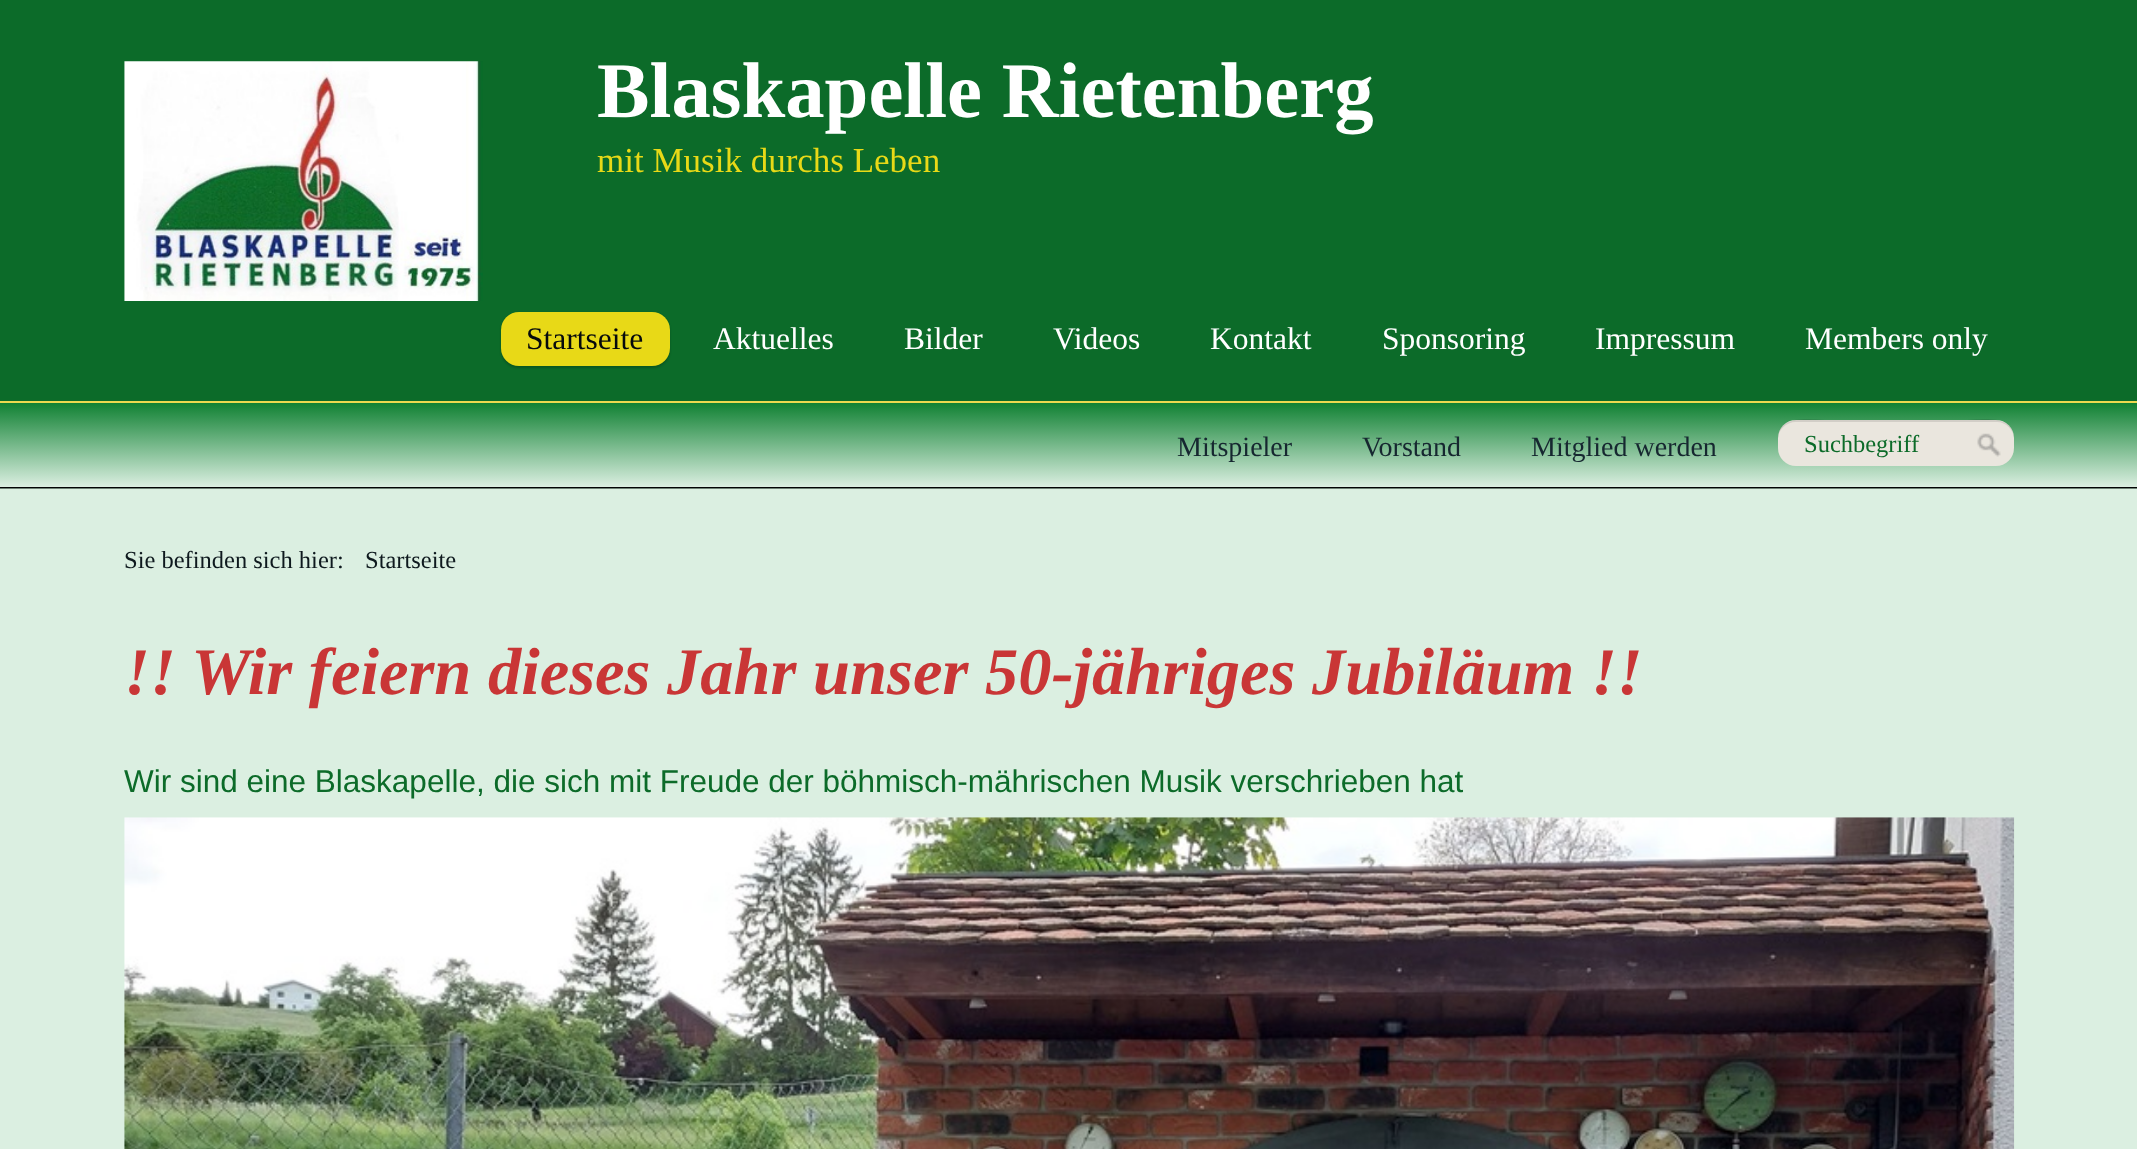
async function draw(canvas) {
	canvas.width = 2137;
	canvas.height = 1149;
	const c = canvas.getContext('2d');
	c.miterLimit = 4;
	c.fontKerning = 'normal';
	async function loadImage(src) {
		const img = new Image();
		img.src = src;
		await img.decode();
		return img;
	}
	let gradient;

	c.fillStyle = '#dbefe1';
	c.fillRect(0, 0, 2137, 1149);
	c.fillStyle = '#0c6b29';
	c.fillRect(0, 0, 2137, 401);
	c.fillStyle = '#edd94f';
	c.fillRect(0, 401, 2137, 2);
	c.drawImage(await loadImage('img1.png'), 124, 61, 359, 240);
	c.font = 'bold 78.75px Liberation Serif';
	c.fillStyle = '#fff';
	c.fillText('Blaskapelle Rietenberg', 597, 117);
	c.font = '35px Liberation Serif';
	c.fillStyle = '#e8d917';
	c.fillText('mit Musik durchs Leben', 597, 172);
	c.fillStyle = '#00000033';
	c.filter = 'blur(1px)';
	c.beginPath();
	c.roundRect(501, 313, 169, 55, 18);
	c.fill();
	c.filter = 'none';
	c.fillStyle = '#e8d917';
	c.beginPath();
	c.roundRect(501, 312, 169, 54, 18);
	c.fill();
	c.font = '31.5px Liberation Serif';
	c.fillStyle = '#060a0d';
	c.fillText('Startseite', 526, 349);
	c.fillStyle = '#fff';
	for (const [text, x, y] of [
		['Aktuelles', 713, 349],
		['Bilder', 904, 349],
		['Videos', 1053, 349],
		['Kontakt', 1210, 349],
		['Sponsoring', 1382, 349],
		['Impressum', 1595, 349],
		['Members only', 1805, 349],
	]) {
		c.fillText(text, x, y);
	}
	gradient = c.createLinearGradient(1069, 402, 1069, 487);
	gradient.addColorStop(0, '#0e8031');
	gradient.addColorStop(1, '#dbefe1');
	c.fillStyle = gradient;
	c.fillRect(0, 403, 2137, 83);
	c.fillStyle = '#020405';
	c.fillRect(0, 487, 2137, 1);
	c.fillStyle = '#6d8174';
	c.fillRect(0, 488, 2137, 1);
	c.font = '28px Liberation Serif';
	c.fillStyle = '#162730';
	for (const [text, x, y] of [
		['Mitspieler', 1177, 456],
		['Vorstand', 1362, 456],
		['Mitglied werden', 1531, 456],
	]) {
		c.fillText(text, x, y);
	}
	c.fillStyle = '#eae6de';
	c.beginPath();
	c.roundRect(1778, 420, 236, 46, 18);
	c.fill();
	c.fillStyle = '#0000001a';
	c.beginPath();
	c.moveTo(1796, 422);
	c.lineTo(1997, 422);
	c.bezierCurveTo(2006, 422, 2014, 430, 2014, 439);
	c.bezierCurveTo(2014, 412, 1978, 420, 1963, 420);
	c.lineTo(1829, 420);
	c.bezierCurveTo(1814, 420, 1778, 412, 1778, 439);
	c.bezierCurveTo(1778, 430, 1786, 422, 1796, 422);
	c.closePath();
	c.fill();
	c.font = '24.5px Liberation Serif';
	c.fillStyle = '#0c6b29';
	c.fillText('Suchbegriff', 1804, 452);
	c.drawImage(await loadImage('img2.png'), 1977, 433, 24, 24);
	c.fillStyle = '#0e191e';
	c.fillText('Sie befinden sich hier:', 124, 568);
	c.fillText('Startseite', 365, 568);
	c.font = 'italic bold 66.5px Liberation Serif';
	c.fillStyle = '#c93636';
	c.fillText('!! Wir feiern dieses Jahr unser 50-jähriges Jubiläum !!', 124, 694);
	c.font = '31.5px Liberation Sans';
	c.fillStyle = '#0c6b29';
	c.fillText('Wir sind eine Blaskapelle, die sich mit Freude der böhmisch-mährischen Musik verschrieben hat', 124, 792);
	c.drawImage(await loadImage('img3.png'), 124, 817, 1891, 332);
}

draw(document.querySelector('canvas'));
